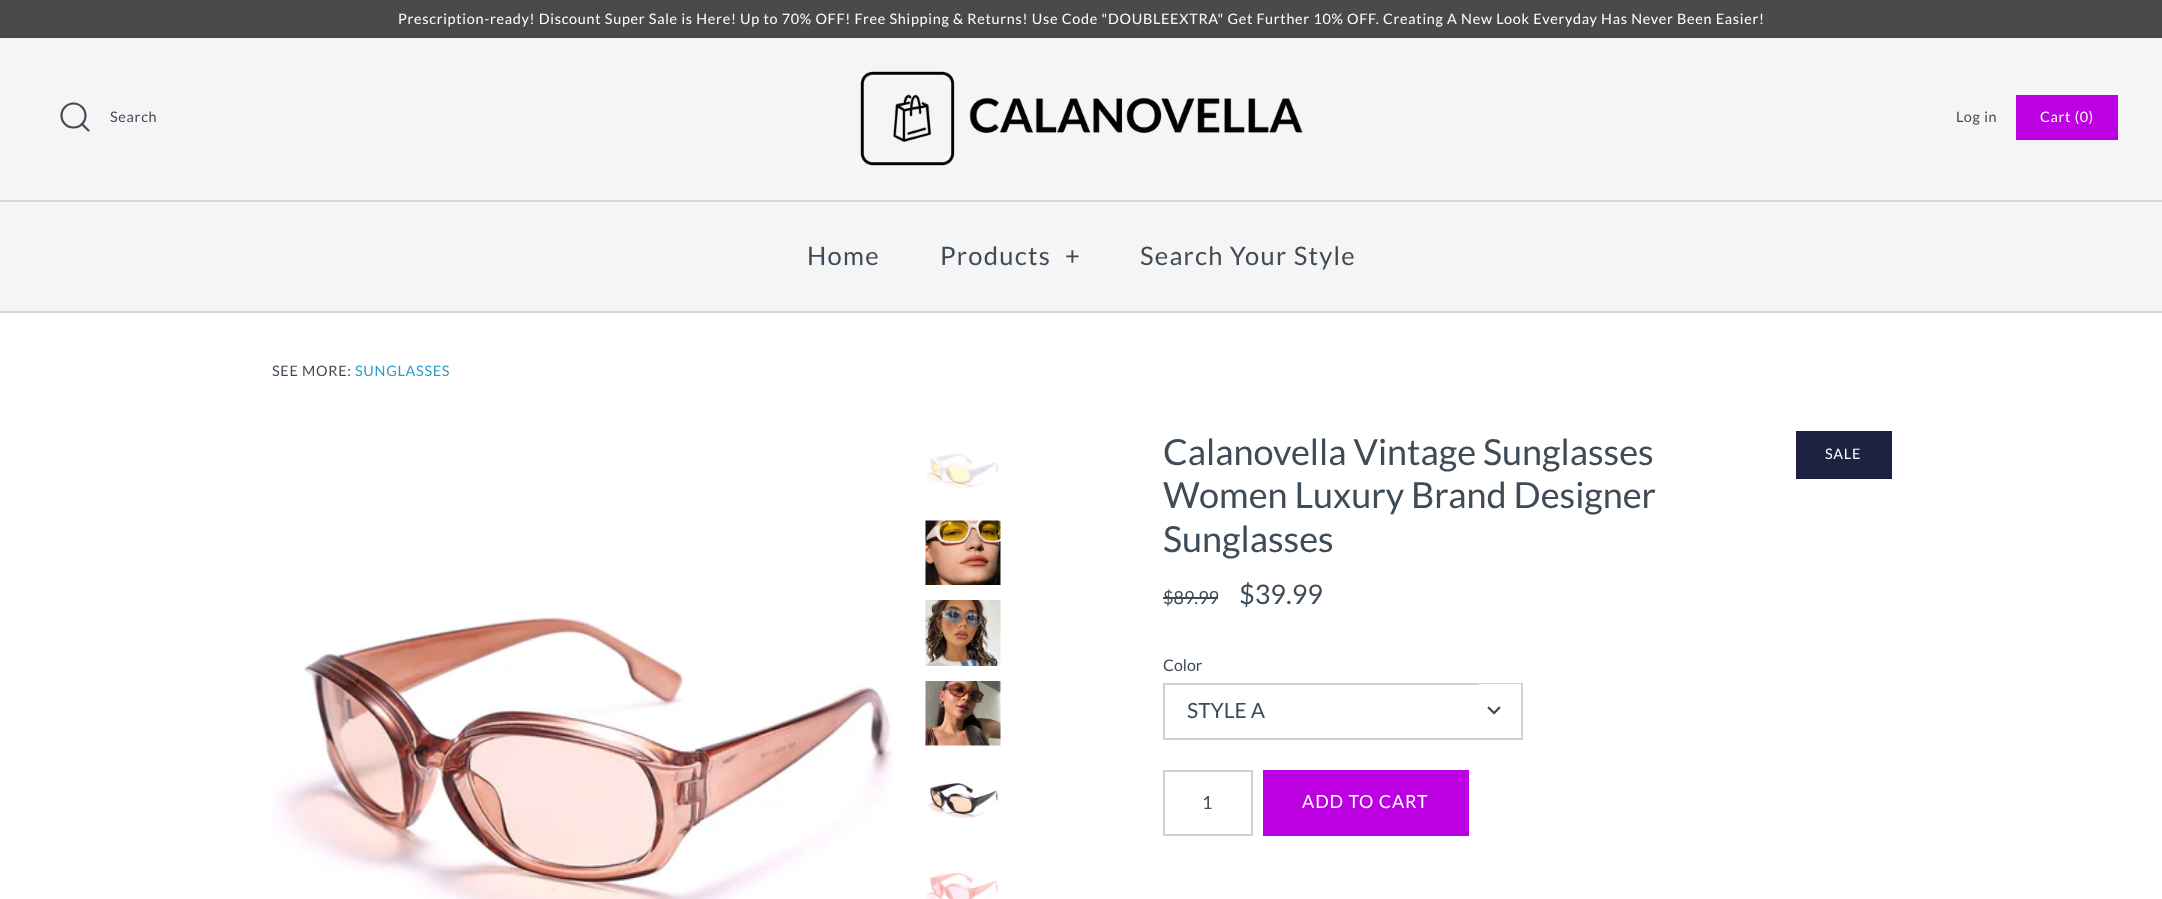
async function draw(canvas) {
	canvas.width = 2162;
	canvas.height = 899;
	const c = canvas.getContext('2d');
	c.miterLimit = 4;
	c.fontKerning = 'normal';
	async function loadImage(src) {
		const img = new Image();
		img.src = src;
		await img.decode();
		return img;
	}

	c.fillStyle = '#fff';
	c.fillRect(0, 0, 2162, 899);
	c.fillStyle = '#4a4a4a';
	c.fillRect(0, 0, 2162, 38);
	c.letterSpacing = '0.72px';
	c.font = '14.4px Lato';
	c.fillStyle = '#fff';
	c.fillText('Prescription-ready! Discount Super Sale is Here! Up to 70% OFF! Free Shipping & Returns! Use Code "DOUBLEEXTRA" Get Further 10% OFF. Creating A New Look Everyday Has Never Been Easier!', 398, 24);
	c.fillStyle = '#f5f5f5';
	c.fillRect(0, 38, 2162, 162);
	c.drawImage(await loadImage('img1.png'), 860, 71, 443, 95);
	c.beginPath();
	c.arc(73.5, 115.5, 12, 0, 2 * Math.PI);
	c.strokeStyle = '#3f4b57';
	c.lineWidth = 2.2;
	c.stroke();
	c.beginPath();
	c.moveTo(88.5, 130.5);
	c.lineTo(82, 124);
	c.lineCap = 'round';
	c.lineJoin = 'round';
	c.stroke();
	c.fillStyle = '#3f4b57';
	c.fillText('Search', 110, 122);
	c.fillText('Log in', 1956, 122);
	c.fillStyle = '#bc00e1';
	c.fillRect(2016, 95, 102, 45);
	c.fillStyle = '#fff';
	c.fillText('Cart (0)', 2040, 122);
	for (const [x, y, w, h, color] of [
		[0, 311, 2162, 2, '#d1d6d9'],
		[0, 202, 2162, 109, '#f5f5f5'],
		[0, 200, 2162, 2, '#d1d6d9'],
	]) {
		c.fillStyle = color;
		c.fillRect(x, y, w, h);
	}
	c.letterSpacing = '1.25px';
	c.font = '25.5px Lato';
	c.fillStyle = '#3f4b57';
	for (const [text, x, y] of [
		['Home', 807, 265],
		['Products', 940, 265],
		['+', 1065, 265],
		['Search Your Style', 1140, 265],
	]) {
		c.fillText(text, x, y);
	}
	c.letterSpacing = '0.72px';
	c.font = '14.4px Lato';
	c.fillText('SEE MORE:', 272, 376);
	c.fillStyle = '#2a9dcc';
	c.fillText('SUNGLASSES', 355, 376);
	c.drawImage(await loadImage('img2.png'), 272, 614, 622, 285);
	c.drawImage(await loadImage('img3.png'), 926, 453, 72, 36);
	c.drawImage(await loadImage('img4.png'), 925, 520, 76, 65);
	c.drawImage(await loadImage('img5.png'), 925, 600, 76, 66);
	c.drawImage(await loadImage('img6.png'), 925, 681, 76, 65);
	c.drawImage(await loadImage('img7.png'), 928, 783, 71, 35);
	c.drawImage(await loadImage('img8.png'), 926, 873, 73, 26);
	c.letterSpacing = '0px';
	c.font = '36px Lato';
	c.fillStyle = '#3f4b57';
	for (const [text, x, y] of [
		['Calanovella Vintage Sunglasses', 1163, 465],
		['Women Luxury Brand Designer', 1163, 508],
		['Sunglasses', 1163, 552],
	]) {
		c.fillText(text, x, y);
	}
	c.fillStyle = '#1c223f';
	c.fillRect(1796, 431, 96, 48);
	c.letterSpacing = '0.72px';
	c.font = '14.4px Lato';
	c.fillStyle = '#fff';
	c.fillText('SALE', 1825, 459);
	c.letterSpacing = '0px';
	c.font = '18px Lato';
	c.fillStyle = '#3f4b57';
	c.fillText('$89.99', 1163, 604);
	c.fillRect(1163, 597, 55, 2);
	c.font = '27px Lato';
	c.fillText('$39.99', 1239, 604);
	c.font = '16px Lato';
	c.fillText('Color', 1163, 671);
	c.strokeStyle = '#cfd2d5';
	c.lineWidth = 2;
	c.lineJoin = 'miter';
	c.strokeRect(1164, 684, 358, 55);
	c.font = '21px Lato';
	c.fillText('STYLE A', 1187, 718);
	c.fillStyle = '#fff';
	c.fillRect(1479, 684, 42, 1);
	c.drawImage(await loadImage('img9.png'), 1487, 706, 14, 9);
	c.strokeRect(1164, 771, 88, 64);
	c.font = '18px Lato';
	c.fillStyle = '#3f4b57';
	c.fillText('1', 1202, 809);
	c.fillStyle = '#bc00e1';
	c.fillRect(1263, 770, 206, 66);
	c.letterSpacing = '0.9px';
	c.fillStyle = '#fff';
	c.fillText('ADD TO CART', 1302, 808);
}

draw(document.querySelector('canvas'));
